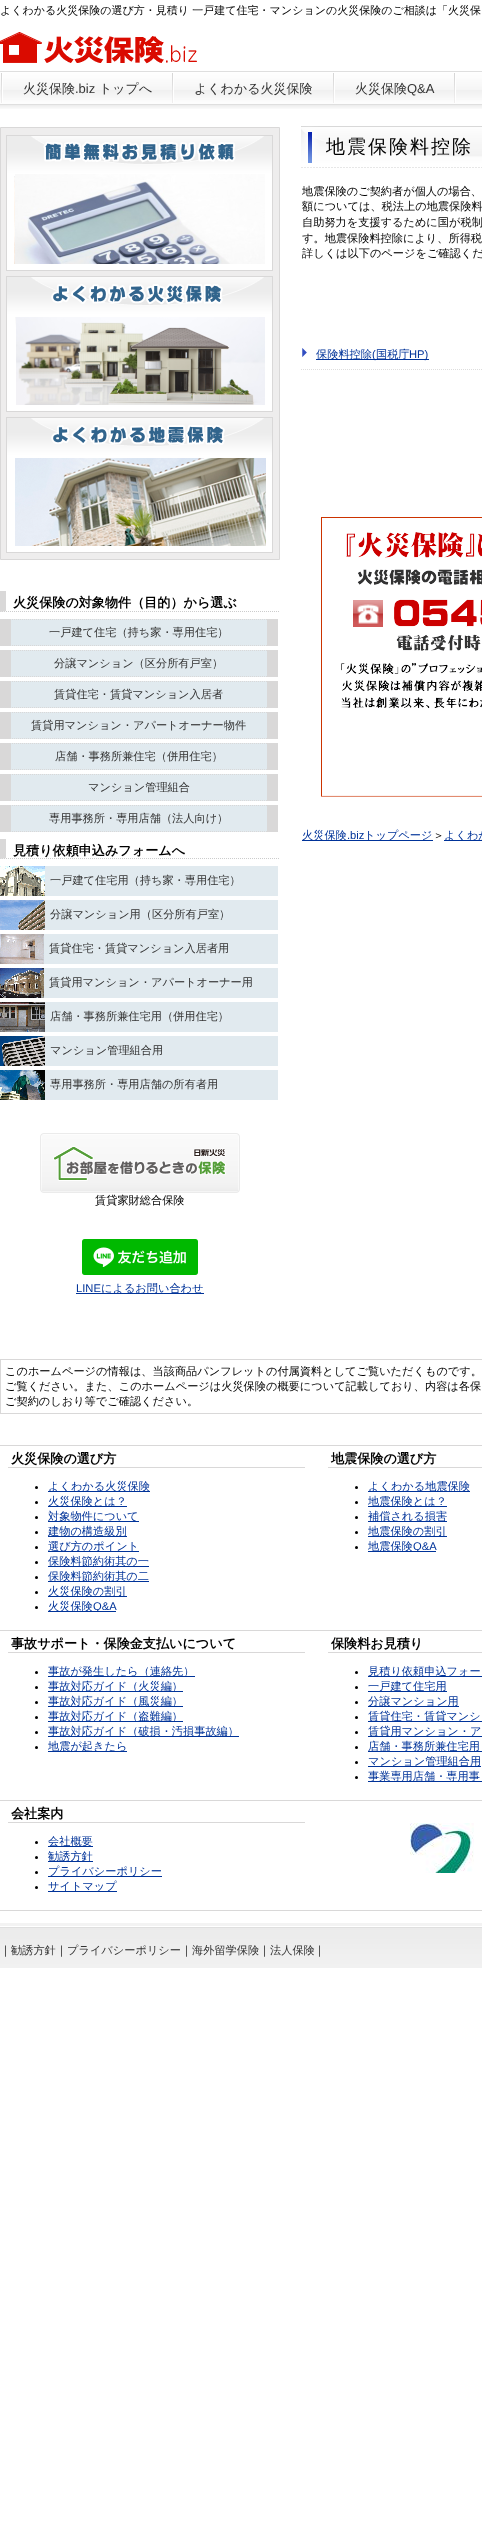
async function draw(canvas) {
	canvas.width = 482;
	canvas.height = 2539;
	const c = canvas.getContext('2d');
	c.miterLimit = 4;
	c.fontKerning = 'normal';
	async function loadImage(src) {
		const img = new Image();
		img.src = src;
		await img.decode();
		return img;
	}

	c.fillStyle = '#fff';
	c.fillRect(0, 0, 482, 2539);
	c.drawImage(await loadImage('img1.png'), 0, 71, 482, 38);
	c.drawImage(await loadImage('img2.png'), 0, 1923, 482, 45);
	c.font = '500 11px WenQuanYi Zen Hei';
	c.fillStyle = '#000';
	c.fillText('よくわかる火災保険の選び方・見積り 一戸建て住宅・マンションの火災保険のご相談は「火災保', 0, 14);
	c.drawImage(await loadImage('img3.png'), 0, 32, 197, 32);
	c.drawImage(await loadImage('img4.png'), 1, 73, 2, 30);
	c.font = '500 13px WenQuanYi Zen Hei';
	c.fillStyle = '#333';
	c.fillText('火災保険', 23, 93);
	c.font = '13px Liberation Sans';
	c.fillText('.biz', 75, 93);
	c.font = '500 13px WenQuanYi Zen Hei';
	c.fillText('トップへ', 99, 93);
	c.drawImage(await loadImage('img4.png'), 172, 73, 2, 30);
	c.fillText('よくわかる火災保険', 194, 93);
	c.drawImage(await loadImage('img4.png'), 333, 73, 2, 30);
	c.fillText('火災保険', 355, 93);
	c.font = '13px Liberation Sans';
	c.fillText('Q&A', 407, 93);
	c.drawImage(await loadImage('img4.png'), 454, 73, 2, 30);
	c.drawImage(await loadImage('img5.png'), 301, 126, 181, 42);
	c.letterSpacing = '2px';
	c.font = '500 19px WenQuanYi Zen Hei';
	c.fillStyle = '#000';
	c.fillText('地震保険料控除', 326, 153);
	c.letterSpacing = '0px';
	c.font = '500 11.2px WenQuanYi Zen Hei';
	for (const [text, x, y] of [
		['地震保険のご契約者が個人の場合、', 302, 195],
		['額については、税法上の地震保険料', 302, 210],
		['自助努力を支援するために国が税制', 302, 226],
		['す。地震保険料控除により、所得税', 302, 242],
		['詳しくは以下のページをご確認くだ', 302, 257],
	]) {
		c.fillText(text, x, y);
	}
	c.drawImage(await loadImage('img6.png'), 302, 348, 5, 9);
	c.fillStyle = '#039';
	c.fillRect(316, 359, 113, 1);
	c.fillText('保険料控除', 316, 358);
	c.font = '11.2px Liberation Sans';
	c.fillText('(', 372, 358);
	c.font = '500 11.2px WenQuanYi Zen Hei';
	c.fillText('国税庁', 376, 358);
	c.font = '11.2px Liberation Sans';
	c.fillText('HP)', 409, 358);
	c.beginPath();
	c.moveTo(301, 369.5);
	c.lineTo(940, 369.5);
	c.strokeStyle = '#ddd';
	c.setLineDash([1, 1]);
	c.stroke();
	c.drawImage(await loadImage('img7.png'), 321, 517, 161, 280);
	c.fillRect(302, 840, 131, 1);
	c.font = '500 11.2px WenQuanYi Zen Hei';
	c.fillText('火災保険', 302, 839);
	c.font = '11.2px Liberation Sans';
	c.fillText('.biz', 347, 839);
	c.font = '500 11.2px WenQuanYi Zen Hei';
	c.fillText('トップページ', 364, 839);
	c.fillStyle = '#000';
	c.fillText('＞', 433, 839);
	c.fillStyle = '#039';
	c.fillRect(444, 840, 38, 1);
	c.fillText('よくわか', 444, 839);
	c.fillStyle = '#eeeded';
	c.beginPath();
	c.rect(0.5, 127.5, 279, 432);
	c.fill();
	c.strokeStyle = '#d9d8d8';
	c.setLineDash([]);
	c.stroke();
	c.drawImage(await loadImage('img8.png'), 6, 135, 267, 136);
	c.drawImage(await loadImage('img9.png'), 6, 276, 267, 136);
	c.drawImage(await loadImage('img10.png'), 6, 417, 267, 136);
	c.beginPath();
	c.moveTo(0, 611.5);
	c.lineTo(280, 611.5);
	c.strokeStyle = '#ccc';
	c.setLineDash([1, 1]);
	c.stroke();
	c.fillStyle = '#d9d8d8';
	c.beginPath();
	c.moveTo(0, 612);
	c.lineTo(0, 591);
	c.lineTo(6, 591);
	c.lineTo(6, 611);
	c.closePath();
	c.fill();
	c.font = 'bold 13.1px WenQuanYi Zen Hei';
	c.fillStyle = '#000';
	c.fillText('火災保険の対象物件（目的）から選ぶ', 13, 607);
	c.fillStyle = '#e1eaef';
	c.fillRect(11, 619, 256, 27);
	c.beginPath();
	c.moveTo(0, 619.5);
	c.lineTo(278, 619.5);
	c.strokeStyle = '#d9d8d8';
	c.stroke();
	c.fillStyle = '#d9d8d8';
	c.fillRect(267, 619, 11, 27);
	c.beginPath();
	c.moveTo(0, 645.5);
	c.lineTo(278, 645.5);
	c.stroke();
	c.fillRect(0, 619, 11, 27);
	c.font = '500 11.2px WenQuanYi Zen Hei';
	c.fillStyle = '#333';
	c.fillText('一戸建て住宅（持ち家・専用住宅）', 49, 636);
	c.fillStyle = '#e1eaef';
	c.fillRect(11, 650, 256, 27);
	c.beginPath();
	c.moveTo(0, 650.5);
	c.lineTo(278, 650.5);
	c.stroke();
	c.fillStyle = '#d9d8d8';
	c.fillRect(267, 650, 11, 27);
	c.beginPath();
	c.moveTo(0, 676.5);
	c.lineTo(278, 676.5);
	c.stroke();
	c.fillRect(0, 650, 11, 27);
	c.fillStyle = '#333';
	c.fillText('分譲マンション（区分所有戸室）', 54, 667);
	c.fillStyle = '#e1eaef';
	c.fillRect(11, 681, 256, 27);
	c.beginPath();
	c.moveTo(0, 681.5);
	c.lineTo(278, 681.5);
	c.stroke();
	c.fillStyle = '#d9d8d8';
	c.fillRect(267, 681, 11, 27);
	c.beginPath();
	c.moveTo(0, 707.5);
	c.lineTo(278, 707.5);
	c.stroke();
	c.fillRect(0, 681, 11, 27);
	c.fillStyle = '#333';
	c.fillText('賃貸住宅・賃貸マンション入居者', 54, 698);
	c.fillStyle = '#e1eaef';
	c.fillRect(11, 712, 256, 27);
	c.beginPath();
	c.moveTo(0, 712.5);
	c.lineTo(278, 712.5);
	c.stroke();
	c.fillStyle = '#d9d8d8';
	c.fillRect(267, 712, 11, 27);
	c.beginPath();
	c.moveTo(0, 738.5);
	c.lineTo(278, 738.5);
	c.stroke();
	c.fillRect(0, 712, 11, 27);
	c.fillStyle = '#333';
	c.fillText('賃貸用マンション・アパートオーナー物件', 31, 729);
	c.fillStyle = '#e1eaef';
	c.fillRect(11, 743, 256, 27);
	c.beginPath();
	c.moveTo(0, 743.5);
	c.lineTo(278, 743.5);
	c.stroke();
	c.fillStyle = '#d9d8d8';
	c.fillRect(267, 743, 11, 27);
	c.beginPath();
	c.moveTo(0, 769.5);
	c.lineTo(278, 769.5);
	c.stroke();
	c.fillRect(0, 743, 11, 27);
	c.fillStyle = '#333';
	c.fillText('店舗・事務所兼住宅（併用住宅）', 55, 760);
	c.fillStyle = '#e1eaef';
	c.fillRect(11, 774, 256, 27);
	c.beginPath();
	c.moveTo(0, 774.5);
	c.lineTo(278, 774.5);
	c.stroke();
	c.fillStyle = '#d9d8d8';
	c.fillRect(267, 774, 11, 27);
	c.beginPath();
	c.moveTo(0, 800.5);
	c.lineTo(278, 800.5);
	c.stroke();
	c.fillRect(0, 774, 11, 27);
	c.fillStyle = '#333';
	c.fillText('マンション管理組合', 88, 791);
	c.fillStyle = '#e1eaef';
	c.fillRect(11, 805, 256, 27);
	c.beginPath();
	c.moveTo(0, 805.5);
	c.lineTo(278, 805.5);
	c.stroke();
	c.fillStyle = '#d9d8d8';
	c.fillRect(267, 805, 11, 27);
	c.beginPath();
	c.moveTo(0, 831.5);
	c.lineTo(278, 831.5);
	c.stroke();
	c.fillRect(0, 805, 11, 27);
	c.fillStyle = '#333';
	c.fillText('専用事務所・専用店舗（法人向け）', 49, 822);
	c.beginPath();
	c.moveTo(0, 858.5);
	c.lineTo(280, 858.5);
	c.strokeStyle = '#ccc';
	c.stroke();
	c.fillStyle = '#d9d8d8';
	c.beginPath();
	c.moveTo(0, 859);
	c.lineTo(0, 839);
	c.lineTo(6, 839);
	c.lineTo(6, 858);
	c.closePath();
	c.fill();
	c.font = 'bold 13.1px WenQuanYi Zen Hei';
	c.fillStyle = '#000';
	c.fillText('見積り依頼申込みフォームへ', 13, 855);
	c.fillStyle = '#e1eaef';
	c.fillRect(45, 866, 233, 30);
	c.drawImage(await loadImage('img11.png'), 0, 866, 45, 30);
	c.font = '500 11.2px WenQuanYi Zen Hei';
	c.fillStyle = '#333';
	c.fillText('一戸建て住宅用（持ち家・専用住宅）', 50, 884);
	c.fillStyle = '#e1eaef';
	c.fillRect(45, 900, 233, 30);
	c.drawImage(await loadImage('img12.png'), 0, 900, 45, 30);
	c.fillStyle = '#333';
	c.fillText('分譲マンション用（区分所有戸室）', 50, 918);
	c.fillStyle = '#e1eaef';
	c.fillRect(44, 934, 234, 30);
	c.drawImage(await loadImage('img13.png'), 0, 934, 44, 30);
	c.fillStyle = '#333';
	c.fillText('賃貸住宅・賃貸マンション入居者用', 49, 952);
	c.fillStyle = '#e1eaef';
	c.fillRect(44, 968, 234, 30);
	c.drawImage(await loadImage('img14.png'), 0, 968, 44, 30);
	c.fillStyle = '#333';
	c.fillText('賃貸用マンション・アパートオーナー用', 49, 986);
	c.fillStyle = '#e1eaef';
	c.fillRect(45, 1002, 233, 30);
	c.drawImage(await loadImage('img15.png'), 0, 1002, 45, 30);
	c.fillStyle = '#333';
	c.fillText('店舗・事務所兼住宅用（併用住宅）', 50, 1020);
	c.fillStyle = '#e1eaef';
	c.fillRect(45, 1036, 233, 30);
	c.drawImage(await loadImage('img16.png'), 0, 1036, 45, 30);
	c.fillStyle = '#333';
	c.fillText('マンション管理組合用', 50, 1054);
	c.fillStyle = '#e1eaef';
	c.fillRect(45, 1070, 233, 30);
	c.drawImage(await loadImage('img17.png'), 0, 1070, 45, 30);
	c.fillStyle = '#333';
	c.fillText('専用事務所・専用店舗の所有者用', 50, 1088);
	c.drawImage(await loadImage('img18.png'), 40, 1133, 200, 60);
	c.fillStyle = '#000';
	c.fillText('賃貸家財総合保険', 95, 1204);
	c.drawImage(await loadImage('img19.png'), 82, 1239, 116, 36);
	c.font = '11.2px Liberation Sans';
	c.fillStyle = '#039';
	c.fillText('LINE', 76, 1292);
	c.fillRect(76, 1293, 128, 1);
	c.font = '500 11.2px WenQuanYi Zen Hei';
	c.fillText('によるお問い合わせ', 101, 1292);
	c.strokeStyle = '#d9d8d8';
	c.setLineDash([]);
	c.strokeRect(0.5, 1359.5, 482, 54);
	c.fillStyle = '#000';
	for (const [text, x, y] of [
		['このホームページの情報は、当該商品パンフレットの付属資料としてご覧いただくものです。', 5, 1375],
		['ご覧ください。また、このホームページは火災保険の概要について記載しており、内容は各保', 5, 1390],
		['ご契約のしおり等でご確認ください。', 5, 1405],
	]) {
		c.fillText(text, x, y);
	}
	c.fillStyle = '#d9d8d8';
	c.fillRect(0, 1445, 482, 1);
	c.fillRect(8, 1467, 297, 1);
	c.font = 'bold 13.1px WenQuanYi Zen Hei';
	c.fillStyle = '#000';
	c.fillText('火災保険の選び方', 11, 1463);
	c.beginPath();
	c.arc(36.5, 1487.5, 1.5, 0, 2 * Math.PI);
	c.fill();
	c.fillStyle = '#039';
	c.fillRect(48, 1491, 102, 1);
	c.font = '500 11.2px WenQuanYi Zen Hei';
	c.fillText('よくわかる火災保険', 48, 1490);
	c.fillStyle = '#000';
	c.beginPath();
	c.arc(36.5, 1502.5, 1.5, 0, 2 * Math.PI);
	c.fill();
	c.fillStyle = '#039';
	c.fillRect(48, 1506, 79, 1);
	c.fillText('火災保険とは？', 48, 1505);
	c.fillStyle = '#000';
	c.beginPath();
	c.arc(36.5, 1517.5, 1.5, 0, 2 * Math.PI);
	c.fill();
	c.fillStyle = '#039';
	c.fillRect(48, 1521, 91, 1);
	c.fillText('対象物件について', 48, 1520);
	c.fillStyle = '#000';
	c.beginPath();
	c.arc(36.5, 1532.5, 1.5, 0, 2 * Math.PI);
	c.fill();
	c.fillStyle = '#039';
	c.fillRect(48, 1536, 79, 1);
	c.fillText('建物の構造級別', 48, 1535);
	c.fillStyle = '#000';
	c.beginPath();
	c.arc(36.5, 1547.5, 1.5, 0, 2 * Math.PI);
	c.fill();
	c.fillStyle = '#039';
	c.fillRect(48, 1551, 91, 1);
	c.fillText('選び方のポイント', 48, 1550);
	c.fillStyle = '#000';
	c.beginPath();
	c.arc(36.5, 1562.5, 1.5, 0, 2 * Math.PI);
	c.fill();
	c.fillStyle = '#039';
	c.fillRect(48, 1566, 101, 1);
	c.fillText('保険料節約術其の一', 48, 1565);
	c.fillStyle = '#000';
	c.beginPath();
	c.arc(36.5, 1577.5, 1.5, 0, 2 * Math.PI);
	c.fill();
	c.fillStyle = '#039';
	c.fillRect(48, 1581, 101, 1);
	c.fillText('保険料節約術其の二', 48, 1580);
	c.fillStyle = '#000';
	c.beginPath();
	c.arc(36.5, 1592.5, 1.5, 0, 2 * Math.PI);
	c.fill();
	c.fillStyle = '#039';
	c.fillRect(48, 1596, 79, 1);
	c.fillText('火災保険の割引', 48, 1595);
	c.fillStyle = '#000';
	c.beginPath();
	c.arc(36.5, 1607.5, 1.5, 0, 2 * Math.PI);
	c.fill();
	c.fillStyle = '#039';
	c.fillRect(48, 1611, 68, 1);
	c.fillText('火災保険', 48, 1610);
	c.font = '11.2px Liberation Sans';
	c.fillText('Q&A', 93, 1610);
	c.fillStyle = '#d9d8d8';
	c.fillRect(0, 1630, 482, 1);
	c.fillRect(328, 1467, 154, 1);
	c.font = 'bold 13.1px WenQuanYi Zen Hei';
	c.fillStyle = '#000';
	c.fillText('地震保険の選び方', 331, 1463);
	c.beginPath();
	c.arc(356.5, 1487.5, 1.5, 0, 2 * Math.PI);
	c.fill();
	c.fillStyle = '#039';
	c.fillRect(368, 1491, 102, 1);
	c.font = '500 11.2px WenQuanYi Zen Hei';
	c.fillText('よくわかる地震保険', 368, 1490);
	c.fillStyle = '#000';
	c.beginPath();
	c.arc(356.5, 1502.5, 1.5, 0, 2 * Math.PI);
	c.fill();
	c.fillStyle = '#039';
	c.fillRect(368, 1506, 79, 1);
	c.fillText('地震保険とは？', 368, 1505);
	c.fillStyle = '#000';
	c.beginPath();
	c.arc(356.5, 1517.5, 1.5, 0, 2 * Math.PI);
	c.fill();
	c.fillStyle = '#039';
	c.fillRect(368, 1521, 79, 1);
	c.fillText('補償される損害', 368, 1520);
	c.fillStyle = '#000';
	c.beginPath();
	c.arc(356.5, 1532.5, 1.5, 0, 2 * Math.PI);
	c.fill();
	c.fillStyle = '#039';
	c.fillRect(368, 1536, 79, 1);
	c.fillText('地震保険の割引', 368, 1535);
	c.fillStyle = '#000';
	c.beginPath();
	c.arc(356.5, 1547.5, 1.5, 0, 2 * Math.PI);
	c.fill();
	c.fillStyle = '#039';
	c.fillRect(368, 1551, 68, 1);
	c.fillText('地震保険', 368, 1550);
	c.font = '11.2px Liberation Sans';
	c.fillText('Q&A', 413, 1550);
	c.fillStyle = '#d9d8d8';
	c.fillRect(8, 1652, 297, 1);
	c.font = 'bold 13.1px WenQuanYi Zen Hei';
	c.fillStyle = '#000';
	c.fillText('事故サポート・保険金支払いについて', 11, 1648);
	c.beginPath();
	c.arc(36.5, 1672.5, 1.5, 0, 2 * Math.PI);
	c.fill();
	c.fillStyle = '#039';
	c.fillRect(48, 1676, 147, 1);
	c.font = '500 11.2px WenQuanYi Zen Hei';
	c.fillText('事故が発生したら（連絡先）', 48, 1675);
	c.fillStyle = '#000';
	c.beginPath();
	c.arc(36.5, 1687.5, 1.5, 0, 2 * Math.PI);
	c.fill();
	c.fillStyle = '#039';
	c.fillRect(48, 1691, 135, 1);
	c.fillText('事故対応ガイド（火災編）', 48, 1690);
	c.fillStyle = '#000';
	c.beginPath();
	c.arc(36.5, 1702.5, 1.5, 0, 2 * Math.PI);
	c.fill();
	c.fillStyle = '#039';
	c.fillRect(48, 1706, 135, 1);
	c.fillText('事故対応ガイド（風災編）', 48, 1705);
	c.fillStyle = '#000';
	c.beginPath();
	c.arc(36.5, 1717.5, 1.5, 0, 2 * Math.PI);
	c.fill();
	c.fillStyle = '#039';
	c.fillRect(48, 1721, 135, 1);
	c.fillText('事故対応ガイド（盗難編）', 48, 1720);
	c.fillStyle = '#000';
	c.beginPath();
	c.arc(36.5, 1732.5, 1.5, 0, 2 * Math.PI);
	c.fill();
	c.fillStyle = '#039';
	c.fillRect(48, 1736, 191, 1);
	c.fillText('事故対応ガイド（破損・汚損事故編）', 48, 1735);
	c.fillStyle = '#000';
	c.beginPath();
	c.arc(36.5, 1747.5, 1.5, 0, 2 * Math.PI);
	c.fill();
	c.fillStyle = '#039';
	c.fillRect(48, 1751, 79, 1);
	c.fillText('地震が起きたら', 48, 1750);
	c.fillStyle = '#d9d8d8';
	c.fillRect(0, 1800, 482, 1);
	c.fillRect(328, 1652, 154, 1);
	c.font = 'bold 13.1px WenQuanYi Zen Hei';
	c.fillStyle = '#000';
	c.fillText('保険料お見積り', 331, 1648);
	c.beginPath();
	c.arc(356.5, 1672.5, 1.5, 0, 2 * Math.PI);
	c.fill();
	c.fillStyle = '#039';
	c.fillRect(368, 1676, 114, 1);
	c.font = '500 11.2px WenQuanYi Zen Hei';
	c.fillText('見積り依頼申込フォー', 368, 1675);
	c.fillStyle = '#000';
	c.beginPath();
	c.arc(356.5, 1687.5, 1.5, 0, 2 * Math.PI);
	c.fill();
	c.fillStyle = '#039';
	c.fillRect(368, 1691, 79, 1);
	c.fillText('一戸建て住宅用', 368, 1690);
	c.fillStyle = '#000';
	c.beginPath();
	c.arc(356.5, 1702.5, 1.5, 0, 2 * Math.PI);
	c.fill();
	c.fillStyle = '#039';
	c.fillRect(368, 1706, 91, 1);
	c.fillText('分譲マンション用', 368, 1705);
	c.fillStyle = '#000';
	c.beginPath();
	c.arc(356.5, 1717.5, 1.5, 0, 2 * Math.PI);
	c.fill();
	c.fillStyle = '#039';
	c.fillRect(368, 1721, 114, 1);
	c.fillText('賃貸住宅・賃貸マンシ', 368, 1720);
	c.fillStyle = '#000';
	c.beginPath();
	c.arc(356.5, 1732.5, 1.5, 0, 2 * Math.PI);
	c.fill();
	c.fillStyle = '#039';
	c.fillRect(368, 1736, 114, 1);
	c.fillText('賃貸用マンション・ア', 368, 1735);
	c.fillStyle = '#000';
	c.beginPath();
	c.arc(356.5, 1747.5, 1.5, 0, 2 * Math.PI);
	c.fill();
	c.fillStyle = '#039';
	c.fillRect(368, 1751, 114, 1);
	c.fillText('店舗・事務所兼住宅用', 368, 1750);
	c.fillStyle = '#000';
	c.beginPath();
	c.arc(356.5, 1762.5, 1.5, 0, 2 * Math.PI);
	c.fill();
	c.fillStyle = '#039';
	c.fillRect(368, 1766, 113, 1);
	c.fillText('マンション管理組合用', 368, 1765);
	c.fillStyle = '#000';
	c.beginPath();
	c.arc(356.5, 1777.5, 1.5, 0, 2 * Math.PI);
	c.fill();
	c.fillStyle = '#039';
	c.fillRect(368, 1781, 114, 1);
	c.fillText('事業専用店舗・専用事', 368, 1780);
	c.fillStyle = '#d9d8d8';
	c.fillRect(8, 1822, 297, 1);
	c.font = 'bold 13.1px WenQuanYi Zen Hei';
	c.fillStyle = '#000';
	c.fillText('会社案内', 11, 1818);
	c.beginPath();
	c.arc(36.5, 1842.5, 1.5, 0, 2 * Math.PI);
	c.fill();
	c.fillStyle = '#039';
	c.fillRect(48, 1846, 45, 1);
	c.font = '500 11.2px WenQuanYi Zen Hei';
	c.fillText('会社概要', 48, 1845);
	c.fillStyle = '#000';
	c.beginPath();
	c.arc(36.5, 1857.5, 1.5, 0, 2 * Math.PI);
	c.fill();
	c.fillStyle = '#039';
	c.fillRect(48, 1861, 45, 1);
	c.fillText('勧誘方針', 48, 1860);
	c.fillStyle = '#000';
	c.beginPath();
	c.arc(36.5, 1872.5, 1.5, 0, 2 * Math.PI);
	c.fill();
	c.fillStyle = '#039';
	c.fillRect(48, 1876, 114, 1);
	c.fillText('プライバシーポリシー', 48, 1875);
	c.fillStyle = '#000';
	c.beginPath();
	c.arc(36.5, 1887.5, 1.5, 0, 2 * Math.PI);
	c.fill();
	c.fillStyle = '#039';
	c.fillRect(48, 1891, 69, 1);
	c.fillText('サイトマップ', 48, 1890);
	c.fillStyle = '#d9d8d8';
	c.fillRect(0, 1910, 482, 1);
	c.drawImage(await loadImage('img20.png'), 410, 1823, 64, 50);
	c.fillStyle = '#000';
	c.fillText('｜', 0, 1954);
	c.fillStyle = '#333';
	c.fillText('勧誘方針', 11, 1954);
	c.fillStyle = '#000';
	c.fillText('｜', 56, 1954);
	c.fillStyle = '#333';
	c.fillText('プライバシーポリシー', 67, 1954);
	c.fillStyle = '#000';
	c.fillText('｜', 181, 1954);
	c.fillStyle = '#333';
	c.fillText('海外留学保険', 192, 1954);
	c.fillStyle = '#000';
	c.fillText('｜', 259, 1954);
	c.fillStyle = '#333';
	c.fillText('法人保険', 270, 1954);
	c.fillStyle = '#000';
	c.fillText('｜', 314, 1954);
}

draw(document.querySelector('canvas'));
